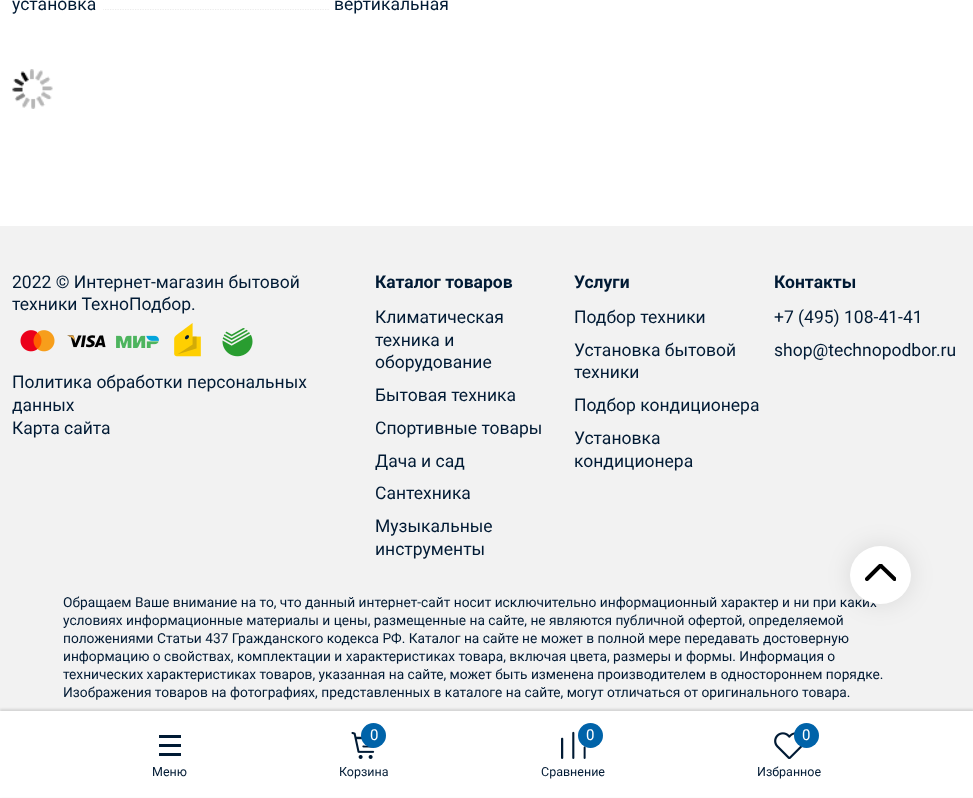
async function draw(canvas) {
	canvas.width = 973;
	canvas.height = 798;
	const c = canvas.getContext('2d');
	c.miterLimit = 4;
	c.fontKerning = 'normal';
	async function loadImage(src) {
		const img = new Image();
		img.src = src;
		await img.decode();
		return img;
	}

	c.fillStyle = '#fff';
	c.fillRect(0, 0, 973, 798);
	c.beginPath();
	c.moveTo(12.5, 9.5);
	c.lineTo(329, 9.5);
	c.strokeStyle = '#ebebeb';
	c.lineWidth = 1.2;
	c.setLineDash([1.25, 1.25]);
	c.stroke();
	c.fillRect(13, 9, 90, 1);
	c.font = '17.5px Roboto';
	c.fillStyle = '#001a34';
	c.fillText('установка', 12, 10);
	c.fillText('вертикальная', 334, 10);
	c.drawImage(await loadImage('img1.png'), 12, 69, 41, 40);
	c.fillStyle = '#f2f2f2';
	c.fillRect(0, 226, 973, 485);
	c.fillStyle = '#001a34';
	c.fillText('2022 © Интернет-магазин бытовой', 12, 288);
	c.fillText('техники ТехноПодбор.', 12, 310);
	c.drawImage(await loadImage('img2.png'), 20, 330, 35, 22);
	c.drawImage(await loadImage('img3.png'), 67, 335, 39, 13);
	c.drawImage(await loadImage('img4.png'), 116, 335, 43, 13);
	c.drawImage(await loadImage('img5.png'), 174, 323, 27, 34);
	c.drawImage(await loadImage('img6.png'), 222, 328, 31, 29);
	for (const [text, x, y] of [
		['Политика обработки персональных', 12, 388],
		['данных', 12, 411],
		['Карта сайта', 12, 434],
	]) {
		c.fillText(text, x, y);
	}
	c.font = 'bold 17.5px Roboto';
	c.fillText('Каталог товаров', 375, 288);
	c.font = '17.5px Roboto';
	for (const [text, x, y] of [
		['Климатическая', 375, 323],
		['техника и', 375, 346],
		['оборудование', 375, 368],
		['Бытовая техника', 375, 401],
		['Спортивные товары', 375, 434],
		['Дача и сад', 375, 467],
		['Сантехника', 375, 499],
		['Музыкальные', 375, 532],
		['инструменты', 375, 555],
	]) {
		c.fillText(text, x, y);
	}
	c.font = 'bold 17.5px Roboto';
	c.fillText('Услуги', 574, 288);
	c.font = '17.5px Roboto';
	for (const [text, x, y] of [
		['Подбор техники', 574, 323],
		['Установка бытовой', 574, 356],
		['техники', 574, 378],
		['Подбор кондиционера', 574, 411],
		['Установка', 574, 444],
		['кондиционера', 574, 467],
	]) {
		c.fillText(text, x, y);
	}
	c.font = 'bold 17.5px Roboto';
	c.fillText('Контакты', 774, 288);
	c.font = '17.5px Roboto';
	c.fillText('+7 (495) 108-41-41', 774, 323);
	c.fillText('shop@technopodbor.ru', 774, 356);
	c.font = '13.75px Roboto';
	for (const [text, x, y] of [
		['Обращаем Ваше внимание на то, что данный интернет-сайт носит исключительно информационный характер и ни при каких', 63, 607],
		['условиях информационные материалы и цены, размещенные на сайте, не являются публичной офертой, определяемой', 63, 625],
		['положениями Статьи 437 Гражданского кодекса РФ. Каталог на сайте не может в полной мере передавать достоверную', 63, 643],
		['информацию о свойствах, комплектации и характеристиках товара, включая цвета, размеры и формы. Информация о', 63, 661],
		['технических характеристиках товаров, указанная на сайте, может быть изменена производителем в одностороннем порядке.', 63, 679],
		['Изображения товаров на фотографиях, представленных в каталоге на сайте, могут отличаться от оригинального товара.', 63, 697],
	]) {
		c.fillText(text, x, y);
	}
	c.fillStyle = '#0000001a';
	c.filter = 'blur(12.5px)';
	c.beginPath();
	c.roundRect(850, 546, 61, 58, 29);
	c.fill();
	c.filter = 'none';
	c.fillStyle = '#fff';
	c.beginPath();
	c.ellipse(880.5, 575, 30.5, 29, 0, 0, 2 * Math.PI);
	c.fill();
	c.save();
	c.beginPath();
	c.rect(865, 564, 31, 17);
	c.clip();
	c.beginPath();
	c.moveTo(867, 579);
	c.lineTo(880, 566);
	c.bezierCurveTo(880.5, 565.5, 881, 565.5, 881, 566);
	c.lineTo(894.5, 579);
	c.strokeStyle = '#000';
	c.lineWidth = 4;
	c.lineCap = 'round';
	c.setLineDash([]);
	c.stroke();
	c.restore();
	c.fillStyle = '#0000001f';
	c.filter = 'blur(1px)';
	c.beginPath();
	c.rect(0, 709, 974, 87);
	c.fill();
	c.filter = 'none';
	for (const [x, y, w, h, color] of [
		[0, 711, 973, 86, '#fff'],
		[159, 735, 22, 3, '#001a34'],
		[159, 744, 22, 3, '#001a34'],
		[159, 753, 22, 3, '#001a34'],
	]) {
		c.fillStyle = color;
		c.fillRect(x, y, w, h);
	}
	c.font = '12.5px Roboto';
	c.fillText('Меню', 152, 776);
	c.drawImage(await loadImage('img7.png'), 351, 732, 24, 27);
	c.fillStyle = '#0063a9';
	c.beginPath();
	c.arc(373.5, 735.5, 12.5, 0, 2 * Math.PI);
	c.fill();
	c.font = '15px Roboto';
	c.fillStyle = '#fff';
	c.fillText('0', 370, 740);
	c.font = '12.5px Roboto';
	c.fillStyle = '#001a34';
	c.fillText('Корзина', 339, 776);
	c.drawImage(await loadImage('img8.png'), 561, 731, 25, 28);
	c.fillStyle = '#0063a9';
	c.beginPath();
	c.arc(590.5, 735.5, 12.5, 0, 2 * Math.PI);
	c.fill();
	c.font = '15px Roboto';
	c.fillStyle = '#fff';
	c.fillText('0', 586, 740);
	c.font = '12.5px Roboto';
	c.fillStyle = '#001a34';
	c.fillText('Сравнение', 541, 776);
	c.drawImage(await loadImage('img9.png'), 774, 732, 28, 27);
	c.fillStyle = '#0063a9';
	c.beginPath();
	c.arc(806.5, 735.5, 12.5, 0, 2 * Math.PI);
	c.fill();
	c.font = '15px Roboto';
	c.fillStyle = '#fff';
	c.fillText('0', 802, 740);
	c.font = '12.5px Roboto';
	c.fillStyle = '#001a34';
	c.fillText('Избранное', 757, 776);
}

draw(document.querySelector('canvas'));
